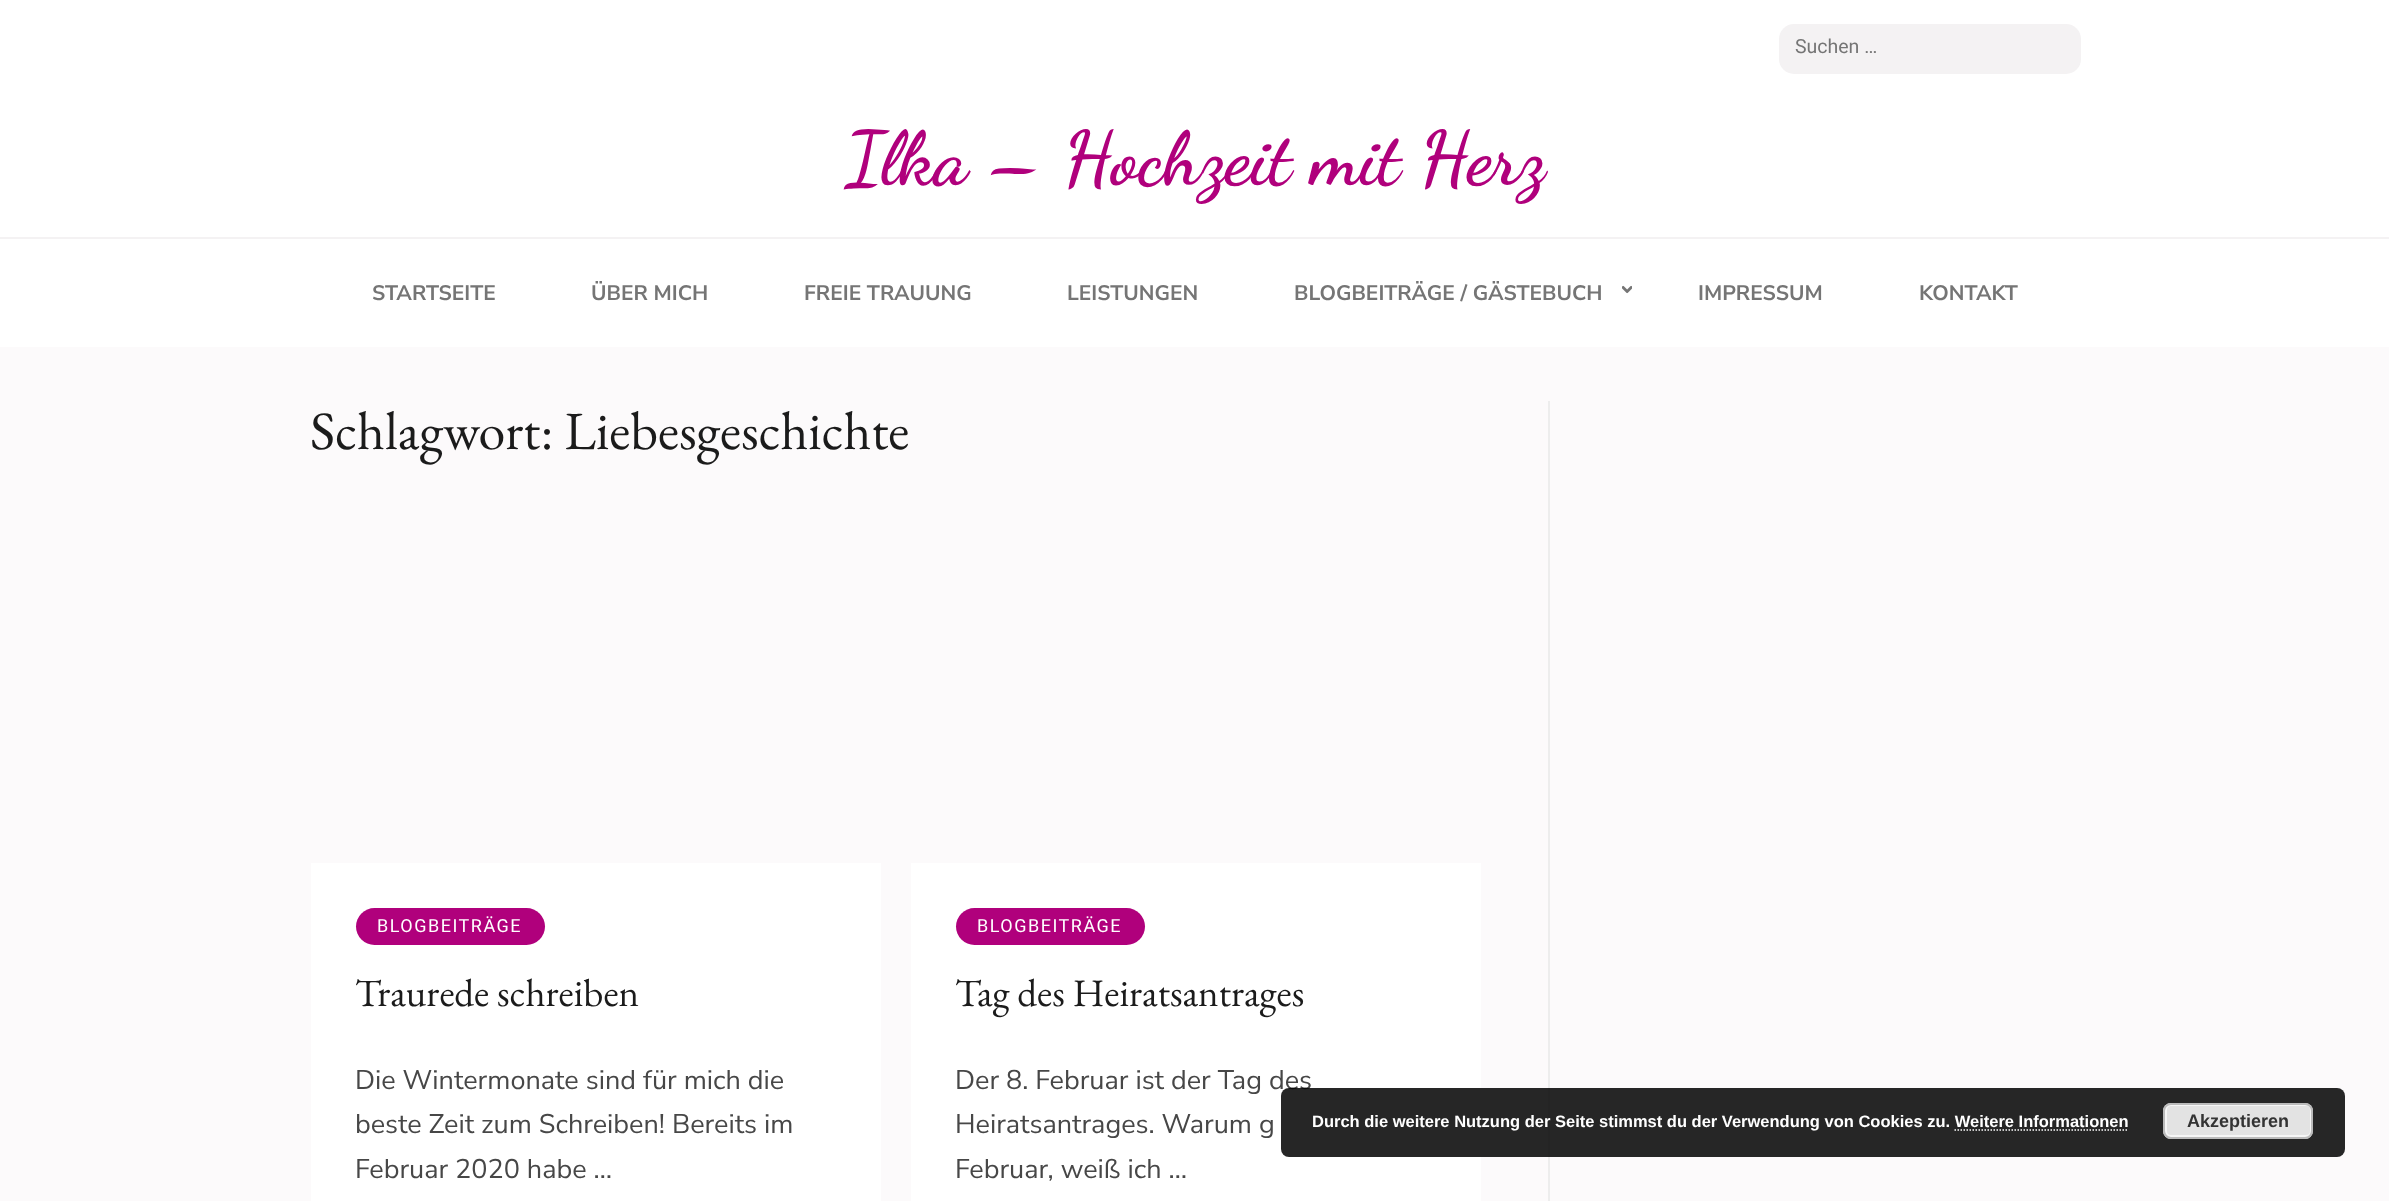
async function draw(canvas) {
	canvas.width = 2389;
	canvas.height = 1201;
	const c = canvas.getContext('2d');
	c.miterLimit = 4;
	c.fontKerning = 'normal';
	async function loadImage(src) {
		const img = new Image();
		img.src = src;
		await img.decode();
		return img;
	}

	c.fillStyle = '#fcfafb';
	c.fillRect(0, 0, 2389, 1201);
	c.fillStyle = '#fff';
	c.fillRect(0, 0, 2389, 237);
	c.fillStyle = '#f4f2f3';
	c.beginPath();
	c.roundRect(1779, 24, 302, 50, 15);
	c.fill();
	c.font = '19.5px Roboto';
	c.fillStyle = '#757575';
	c.fillText('Suchen …', 1795, 53);
	c.font = 'bold 75px Dancing Script';
	c.fillStyle = '#b0007c';
	c.fillText('Ilka – Hochzeit mit Herz', 845, 183);
	c.fillStyle = '#fff';
	c.fillRect(0, 239, 2389, 108);
	c.fillStyle = '#f4f2f3';
	c.fillRect(0, 237, 2389, 2);
	c.font = 'bold 21px Nunito Sans';
	c.fillStyle = '#757575';
	for (const [text, x, y] of [
		['STARTSEITE', 372, 300],
		['ÜBER MICH', 591, 300],
		['FREIE TRAUUNG', 804, 300],
		['LEISTUNGEN', 1067, 300],
		['BLOGBEITRÄGE / GÄSTEBUCH', 1294, 300],
	]) {
		c.fillText(text, x, y);
	}
	c.drawImage(await loadImage('img1.png'), 1622, 285, 10, 9);
	c.fillText('IMPRESSUM', 1698, 300);
	c.fillText('KONTAKT', 1919, 300);
	c.fillStyle = '#ededed';
	c.fillRect(1548, 401, 2, 800);
	c.font = '54px EB Garamond';
	c.fillStyle = '#1b1b1b';
	c.fillText('Schlagwort: Liebesgeschichte', 310, 449);
	c.fillStyle = '#fff';
	c.fillRect(311, 863, 570, 338);
	c.fillStyle = '#b0007c';
	c.beginPath();
	c.roundRect(356, 908, 189, 37, 18.5);
	c.fill();
	c.letterSpacing = '1.5px';
	c.font = '18px Roboto';
	c.fillStyle = '#fff';
	c.fillText('BLOGBEITRÄGE', 377, 932);
	c.letterSpacing = '0px';
	c.font = '39px EB Garamond';
	c.fillStyle = '#1b1b1b';
	c.fillText('Traurede schreiben', 355, 1006);
	c.font = '27px Nunito Sans';
	c.fillStyle = '#474747';
	for (const [text, x, y] of [
		['Die Wintermonate sind für mich die', 355, 1089],
		['beste Zeit zum Schreiben! Bereits im', 355, 1133],
		['Februar 2020 habe …', 355, 1178],
	]) {
		c.fillText(text, x, y);
	}
	c.fillStyle = '#fff';
	c.fillRect(911, 863, 570, 338);
	c.fillStyle = '#b0007c';
	c.beginPath();
	c.roundRect(956, 908, 189, 37, 18.5);
	c.fill();
	c.letterSpacing = '1.5px';
	c.font = '18px Roboto';
	c.fillStyle = '#fff';
	c.fillText('BLOGBEITRÄGE', 977, 932);
	c.letterSpacing = '0px';
	c.font = '39px EB Garamond';
	c.fillStyle = '#1b1b1b';
	c.fillText('Tag des Heiratsantrages', 955, 1006);
	c.font = '27px Nunito Sans';
	c.fillStyle = '#474747';
	for (const [text, x, y] of [
		['Der 8. Februar ist der Tag des', 955, 1089],
		['Heiratsantrages. Warum g', 955, 1133],
		['Februar, weiß ich …', 955, 1178],
	]) {
		c.fillText(text, x, y);
	}
	c.fillStyle = '#000000d9';
	c.beginPath();
	c.roundRect(1281, 1088, 1064, 69, 8);
	c.fill();
	c.font = 'bold 16.5px Liberation Sans';
	c.fillStyle = '#fff';
	c.fillText('Durch die weitere Nutzung der Seite stimmst du der Verwendung von Cookies zu. Weitere Informationen', 1312, 1127);
	c.fillStyle = '#e3e3e3';
	c.beginPath();
	c.roundRect(2163, 1103, 150, 36, 8);
	c.fill();
	c.beginPath();
	c.roundRect(2166, 1105, 145, 31, 5);
	c.strokeStyle = '#f6f6f6';
	c.lineWidth = 2;
	c.stroke();
	c.beginPath();
	c.roundRect(2164, 1104, 148, 34, 7);
	c.strokeStyle = '#bbb';
	c.stroke();
	c.font = 'bold 18px Liberation Sans';
	c.fillStyle = '#333';
	c.fillText('Akzeptieren', 2187, 1127);
	c.beginPath();
	c.moveTo(1954.5, 1130);
	c.lineTo(2128.5, 1130);
	c.strokeStyle = '#fff';
	c.lineWidth = 1.5;
	c.setLineDash([1.5, 1.5]);
	c.stroke();
}

draw(document.querySelector('canvas'));
